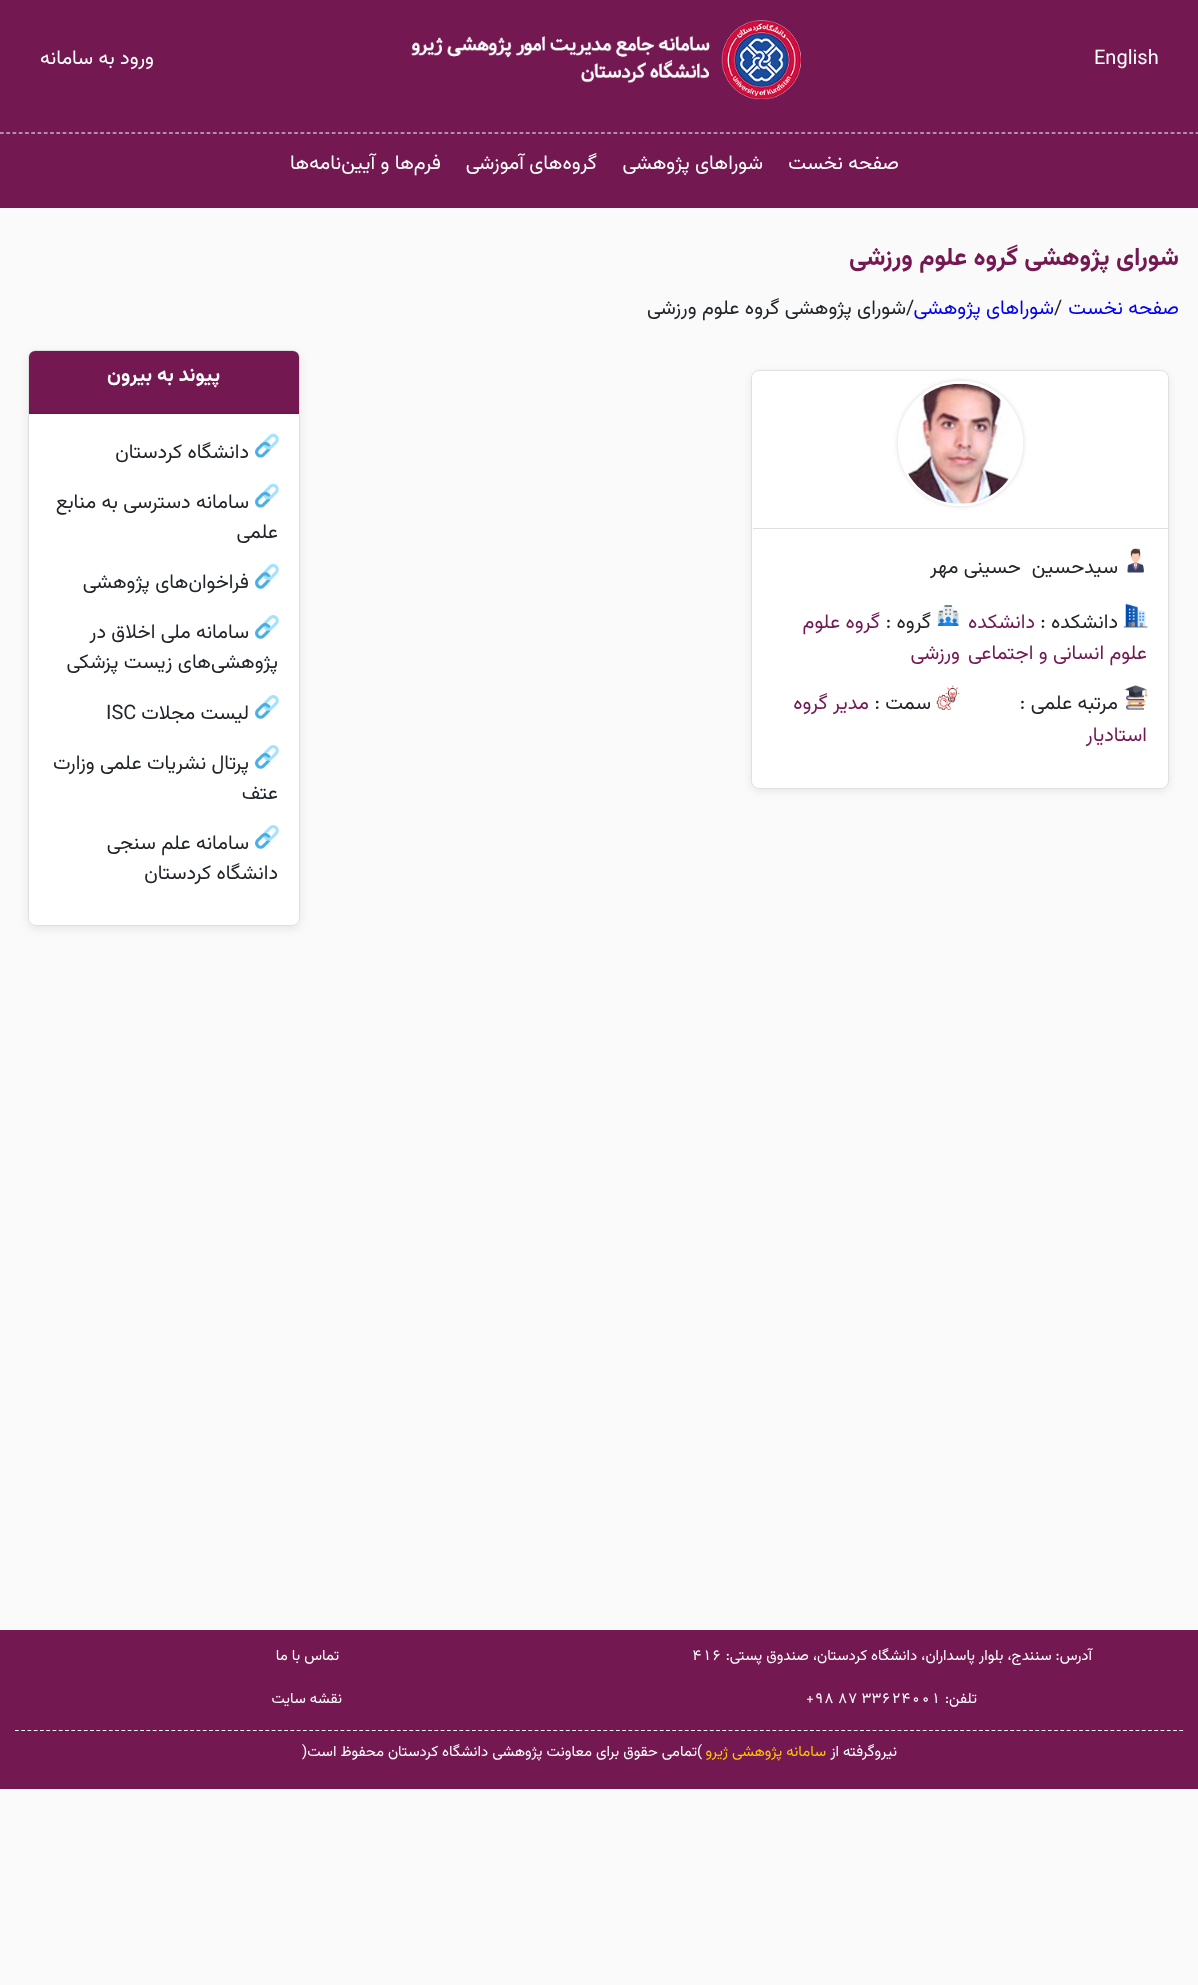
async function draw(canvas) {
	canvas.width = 1198;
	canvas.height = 1985;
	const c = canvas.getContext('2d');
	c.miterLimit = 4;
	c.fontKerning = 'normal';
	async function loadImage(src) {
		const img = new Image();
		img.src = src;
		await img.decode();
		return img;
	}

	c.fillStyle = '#fafafa';
	c.fillRect(0, 0, 1198, 1985);
	c.fillStyle = '#731851';
	c.fillRect(0, 0, 1198, 208);
	c.font = '20px Vazirmatn';
	c.fillStyle = '#fff';
	c.fillText('English', 1094, 64);
	c.drawImage(await loadImage('img1.png'), 411, 20, 390, 80);
	c.direction = 'rtl';
	c.fillText('ورود به سامانه', 154, 64);
	c.beginPath();
	c.moveTo(0, 133);
	c.lineTo(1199, 133);
	c.strokeStyle = '#fff';
	c.lineWidth = 1.2;
	c.setLineDash([3.75, 2.51]);
	c.stroke();
	for (const [text, x, y] of [
		['صفحه نخست', 899, 169],
		['شوراهای پژوهشی', 763, 169],
		['گروه‌های آموزشی', 597, 169],
		['فرم‌ها و آیین‌نامه‌ها', 441, 169],
	]) {
		c.fillText(text, x, y);
	}
	c.font = 'bold 25px Vazirmatn';
	c.fillStyle = '#731851';
	c.fillText('شورای پژوهشی گروه علوم ورزشی', 1179, 265);
	c.font = '20px Vazirmatn';
	c.fillStyle = '#00e';
	c.fillText('صفحه نخست', 1179, 314);
	c.direction = 'ltr';
	c.fillStyle = '#212529';
	c.fillText('/', 1054, 314);
	c.direction = 'rtl';
	c.fillStyle = '#00e';
	c.fillText('شوراهای پژوهشی', 1054, 314);
	c.direction = 'ltr';
	c.fillStyle = '#212529';
	c.fillText('/', 906, 314);
	c.direction = 'rtl';
	c.fillText('شورای پژوهشی گروه علوم ورزشی', 906, 314);
	c.fillStyle = '#00000014';
	c.filter = 'blur(4px)';
	c.beginPath();
	c.roundRect(751, 373, 418, 418, 8);
	c.fill();
	c.filter = 'none';
	c.fillStyle = '#fff';
	c.beginPath();
	c.roundRect(751, 370, 418, 419, 8);
	c.fill();
	c.beginPath();
	c.roundRect(751.5, 370.5, 417, 418, 7.5);
	c.strokeStyle = '#0000001f';
	c.lineWidth = 1;
	c.setLineDash([]);
	c.stroke();
	c.fillStyle = '#dfdfdf';
	c.fillRect(753, 528, 415, 1);
	c.save();
	c.beginPath();
	c.moveTo(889, 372);
	c.lineTo(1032, 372);
	c.lineTo(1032, 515);
	c.lineTo(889, 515);
	c.closePath();
	c.moveTo(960.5, 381);
	c.bezierCurveTo(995, 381, 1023, 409, 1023, 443.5);
	c.bezierCurveTo(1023, 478, 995, 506, 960.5, 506);
	c.bezierCurveTo(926, 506, 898, 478, 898, 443.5);
	c.bezierCurveTo(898, 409, 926, 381, 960.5, 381);
	c.closePath();
	c.clip('evenodd');
	c.fillStyle = '#00000026';
	c.filter = 'blur(2.5px)';
	c.beginPath();
	c.roundRect(898, 381, 125, 125, 62.5);
	c.fill();
	c.filter = 'none';
	c.restore();
	c.beginPath();
	c.arc(960.5, 443.5, 61, 0, 2 * Math.PI);
	c.strokeStyle = '#fff';
	c.lineWidth = 3;
	c.stroke();
	c.drawImage(await loadImage('img2.png'), 907, 383, 103, 121);
	c.drawImage(await loadImage('img3.png'), 1127, 548, 17, 25);
	c.fillStyle = '#212529';
	c.fillText('سیدحسین', 1118, 573);
	c.fillText('حسینی مهر', 1021, 573);
	c.drawImage(await loadImage('img4.png'), 1123, 603, 25, 25);
	c.fillText('دانشکده :', 1118, 628);
	c.fillStyle = '#731851';
	c.fillText('دانشکده', 1035, 628);
	c.fillText('علوم انسانی و اجتماعی', 1147, 659);
	c.drawImage(await loadImage('img5.png'), 937, 605, 22, 21);
	c.fillStyle = '#212529';
	c.fillText('گروه :', 931, 628);
	c.fillStyle = '#731851';
	c.fillText('گروه علوم', 880, 628);
	c.fillText('ورزشی', 960, 659);
	c.drawImage(await loadImage('img6.png'), 1124, 685, 24, 25);
	c.fillStyle = '#212529';
	c.fillText('مرتبه علمی :', 1118, 709);
	c.fillStyle = '#731851';
	c.fillText('استادیار', 1147, 741);
	c.drawImage(await loadImage('img7.png'), 936, 685, 24, 25);
	c.fillStyle = '#212529';
	c.fillText('سمت :', 931, 709);
	c.fillStyle = '#731851';
	c.fillText('مدیر گروه', 869, 709);
	c.fillStyle = '#00000014';
	c.filter = 'blur(4px)';
	c.beginPath();
	c.roundRect(28, 353, 272, 576, 8);
	c.fill();
	c.filter = 'none';
	c.fillStyle = '#fff';
	c.beginPath();
	c.roundRect(28, 350, 272, 576, 8);
	c.fill();
	c.beginPath();
	c.roundRect(28.5, 350.5, 271, 575, 7.5);
	c.strokeStyle = '#0000001f';
	c.lineWidth = 1;
	c.stroke();
	c.fillStyle = '#731851';
	c.beginPath();
	c.roundRect(29, 351, 270, 63, [6, 6, 0, 0]);
	c.fill();
	c.fillStyle = '#651547';
	c.fillRect(29, 413, 270, 1);
	c.font = 'bold 20px Vazirmatn';
	c.fillStyle = '#fff';
	c.fillText('پیوند به بیرون', 220, 381);
	c.drawImage(await loadImage('img8.png'), 255, 433, 24, 25);
	c.font = '20px Vazirmatn';
	c.fillStyle = '#212529';
	c.fillText('دانشگاه کردستان', 249, 458);
	c.drawImage(await loadImage('img8.png'), 255, 483, 24, 25);
	c.fillText('سامانه دسترسی به منابع', 249, 508);
	c.fillText('علمی', 278, 538);
	c.drawImage(await loadImage('img9.png'), 255, 563, 24, 26);
	c.fillText('فراخوان‌های پژوهشی', 249, 588);
	c.drawImage(await loadImage('img10.png'), 255, 615, 24, 24);
	c.fillText('سامانه ملی اخلاق در', 249, 638);
	c.fillText('پژوهشی‌های زیست پزشکی', 278, 668);
	c.drawImage(await loadImage('img10.png'), 255, 695, 24, 24);
	c.fillText('لیست مجلات', 249, 719);
	c.direction = 'ltr';
	c.fillText('ISC', 106, 719);
	c.drawImage(await loadImage('img10.png'), 255, 745, 24, 24);
	c.direction = 'rtl';
	c.fillText('پرتال نشریات علمی وزارت', 249, 769);
	c.fillText('عتف', 278, 799);
	c.drawImage(await loadImage('img10.png'), 255, 825, 24, 24);
	c.fillText('سامانه علم سنجی', 249, 849);
	c.fillText('دانشگاه کردستان', 278, 879);
	c.fillStyle = '#731851';
	c.fillRect(0, 1630, 1198, 159);
	c.font = '15px Vazirmatn';
	c.fillStyle = '#fff';
	c.fillText('آدرس: سنندج، بلوار پاسداران، دانشگاه کردستان، صندوق پستی:', 1092, 1660);
	c.direction = 'ltr';
	c.font = '15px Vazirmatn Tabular';
	c.fillText('416', 692, 1660);
	c.direction = 'rtl';
	c.font = '15px Vazirmatn';
	c.fillText('تلفن:', 977, 1703);
	c.direction = 'ltr';
	c.font = '15px Vazirmatn Tabular';
	c.fillText('98 87 33624001', 814, 1703);
	c.font = '15px Vazirmatn';
	c.fillText('+', 806, 1703);
	c.direction = 'rtl';
	c.fillText('تماس با ما', 339, 1660);
	c.fillText('نقشه سایت', 342, 1703);
	c.beginPath();
	c.moveTo(15, 1730.5);
	c.lineTo(1184, 1730.5);
	c.strokeStyle = '#fff';
	c.lineWidth = 1.2;
	c.setLineDash([3.75, 2.51]);
	c.stroke();
	c.fillText('نیروگرفته از', 897, 1756);
	c.fillStyle = '#ffc107';
	c.fillText('سامانه پژوهشی ژیرو', 826, 1756);
	c.direction = 'ltr';
	c.fillStyle = '#fff';
	c.fillText('(', 697, 1756);
	c.direction = 'rtl';
	c.fillText('تمامی حقوق برای معاونت پژوهشی دانشگاه کردستان محفوظ است', 697, 1756);
	c.direction = 'ltr';
	c.fillText(')', 302, 1756);
}

draw(document.querySelector('canvas'));
